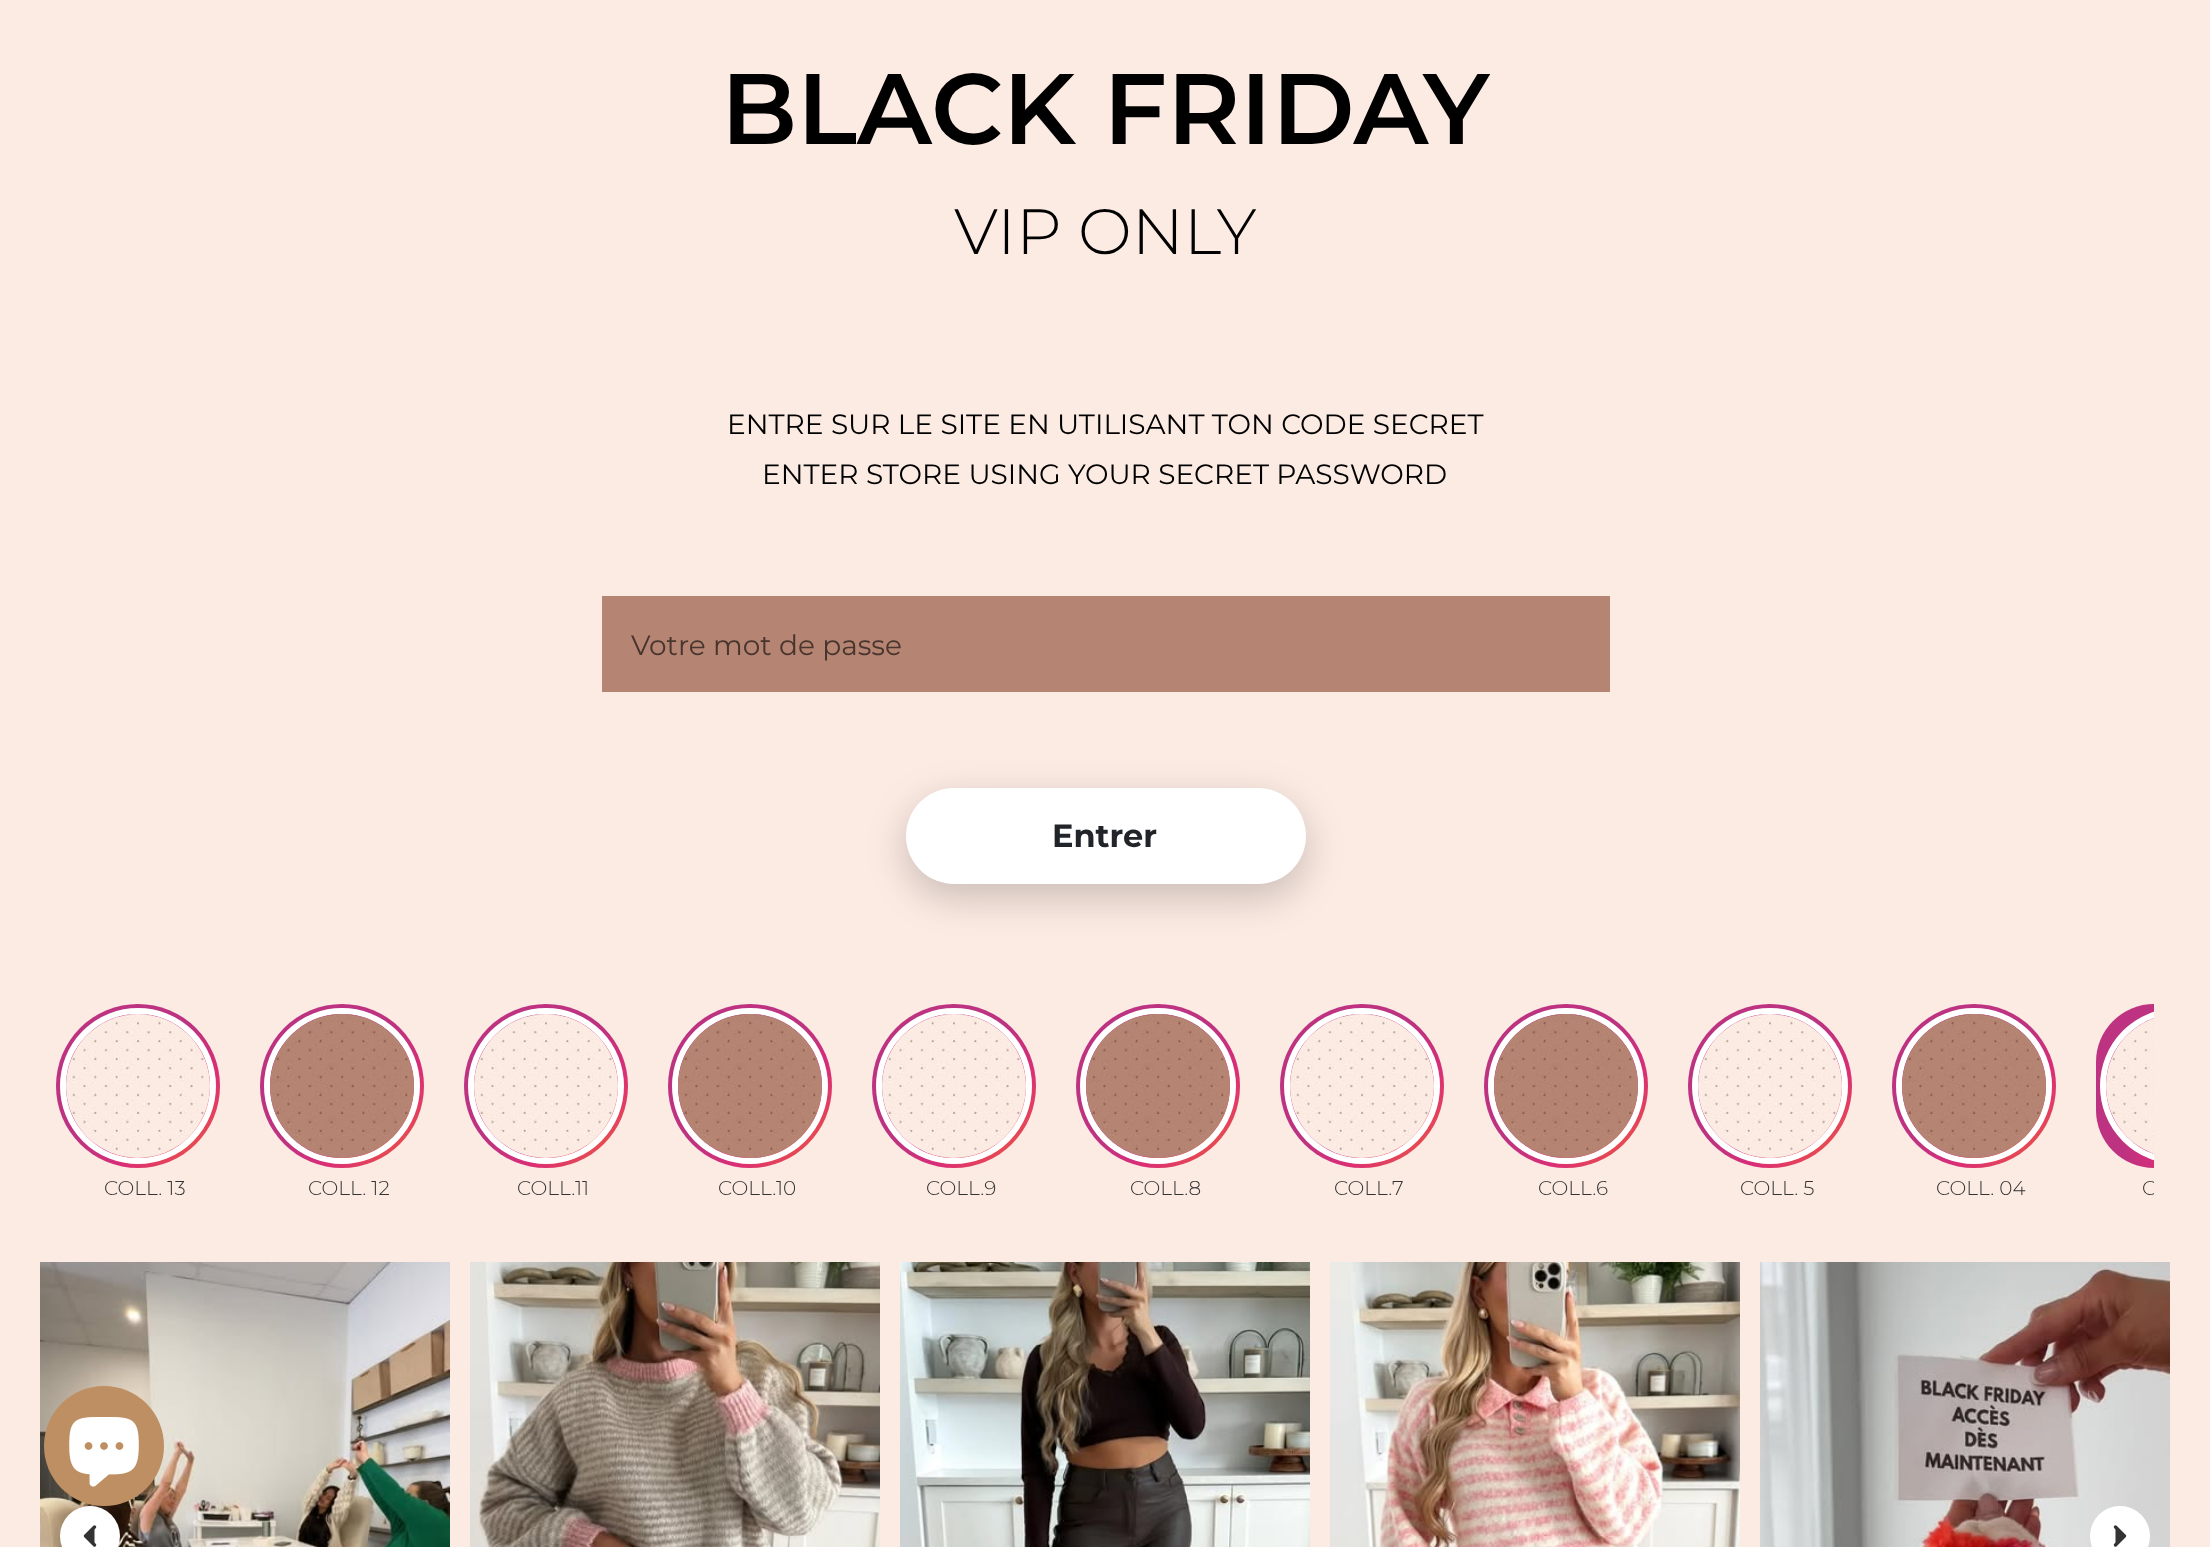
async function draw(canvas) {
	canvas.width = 2210;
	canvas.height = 1547;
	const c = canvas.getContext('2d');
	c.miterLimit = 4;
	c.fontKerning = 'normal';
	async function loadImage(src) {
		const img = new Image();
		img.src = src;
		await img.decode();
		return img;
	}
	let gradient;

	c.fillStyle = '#fcebe3';
	c.fillRect(0, 0, 2210, 1547);
	c.font = '600 100px Montserrat';
	c.fillStyle = '#000';
	c.fillText('BLACK FRIDAY', 721, 144);
	c.font = '300 64px Montserrat';
	c.fillText('VIP ONLY', 954, 254);
	c.font = '100 28px Montserrat';
	c.fillText('ENTRE SUR LE SITE EN UTILISANT TON CODE SECRET', 727, 434);
	c.fillText('ENTER STORE USING YOUR SECRET PASSWORD', 762, 484);
	c.fillStyle = '#b58472';
	c.fillRect(602, 596, 1008, 96);
	c.fillStyle = '#48352e';
	c.fillText('Votre mot de passe', 631, 655);
	c.fillStyle = '#00000026';
	c.filter = 'blur(20px)';
	c.beginPath();
	c.roundRect(906, 800, 400, 96, 48);
	c.fill();
	c.filter = 'none';
	c.fillStyle = '#0000000d';
	c.filter = 'blur(16px)';
	c.beginPath();
	c.roundRect(906, 804, 400, 96, 48);
	c.fill();
	c.filter = 'none';
	c.fillStyle = '#fff';
	c.beginPath();
	c.roundRect(906, 788, 400, 96, 48);
	c.fill();
	c.font = 'bold 32px Montserrat';
	c.fillStyle = '#212529';
	c.fillText('Entrer', 1052, 847);
	gradient = c.createRadialGradient(171, 1119, 0, 171, 1119, 162);
	gradient.addColorStop(0.08, '#ee583f');
	gradient.addColorStop(0.42, '#d92d77');
	gradient.addColorStop(0.58, '#bd3381');
	c.fillStyle = gradient;
	c.beginPath();
	c.arc(138, 1086, 82, 0, 2 * Math.PI);
	c.fill();
	c.beginPath();
	c.arc(138, 1086, 75, 0, 2 * Math.PI);
	c.strokeStyle = '#fff';
	c.lineWidth = 6;
	c.stroke();
	c.drawImage(await loadImage('img1.png'), 66, 1014, 144, 144);
	c.font = '300 20px Montserrat';
	c.fillStyle = '#333';
	c.fillText('COLL. 13', 104, 1195);
	gradient = c.createRadialGradient(375, 1119, 0, 375, 1119, 162);
	gradient.addColorStop(0.08, '#ee583f');
	gradient.addColorStop(0.42, '#d92d77');
	gradient.addColorStop(0.58, '#bd3381');
	c.fillStyle = gradient;
	c.beginPath();
	c.arc(342, 1086, 82, 0, 2 * Math.PI);
	c.fill();
	c.beginPath();
	c.arc(342, 1086, 75, 0, 2 * Math.PI);
	c.stroke();
	c.drawImage(await loadImage('img2.png'), 270, 1014, 144, 144);
	c.fillStyle = '#333';
	c.fillText('COLL. 12', 308, 1195);
	gradient = c.createRadialGradient(579, 1119, 0, 579, 1119, 162);
	gradient.addColorStop(0.08, '#ee583f');
	gradient.addColorStop(0.42, '#d92d77');
	gradient.addColorStop(0.58, '#bd3381');
	c.fillStyle = gradient;
	c.beginPath();
	c.arc(546, 1086, 82, 0, 2 * Math.PI);
	c.fill();
	c.beginPath();
	c.arc(546, 1086, 75, 0, 2 * Math.PI);
	c.stroke();
	c.drawImage(await loadImage('img3.png'), 474, 1014, 144, 144);
	c.fillStyle = '#333';
	c.fillText('COLL.11', 517, 1195);
	gradient = c.createRadialGradient(783, 1119, 0, 783, 1119, 162);
	gradient.addColorStop(0.08, '#ee583f');
	gradient.addColorStop(0.42, '#d92d77');
	gradient.addColorStop(0.58, '#bd3381');
	c.fillStyle = gradient;
	c.beginPath();
	c.arc(750, 1086, 82, 0, 2 * Math.PI);
	c.fill();
	c.beginPath();
	c.arc(750, 1086, 75, 0, 2 * Math.PI);
	c.stroke();
	c.drawImage(await loadImage('img4.png'), 678, 1014, 144, 144);
	c.fillStyle = '#333';
	c.fillText('COLL.10', 718, 1195);
	gradient = c.createRadialGradient(987, 1119, 0, 987, 1119, 162);
	gradient.addColorStop(0.08, '#ee583f');
	gradient.addColorStop(0.42, '#d92d77');
	gradient.addColorStop(0.58, '#bd3381');
	c.fillStyle = gradient;
	c.beginPath();
	c.arc(954, 1086, 82, 0, 2 * Math.PI);
	c.fill();
	c.beginPath();
	c.arc(954, 1086, 75, 0, 2 * Math.PI);
	c.stroke();
	c.drawImage(await loadImage('img5.png'), 882, 1014, 144, 144);
	c.fillStyle = '#333';
	c.fillText('COLL.9', 926, 1195);
	gradient = c.createRadialGradient(1191, 1119, 0, 1191, 1119, 162);
	gradient.addColorStop(0.08, '#ee583f');
	gradient.addColorStop(0.42, '#d92d77');
	gradient.addColorStop(0.58, '#bd3381');
	c.fillStyle = gradient;
	c.beginPath();
	c.arc(1158, 1086, 82, 0, 2 * Math.PI);
	c.fill();
	c.beginPath();
	c.arc(1158, 1086, 75, 0, 2 * Math.PI);
	c.stroke();
	c.drawImage(await loadImage('img6.png'), 1086, 1014, 144, 144);
	c.fillStyle = '#333';
	c.fillText('COLL.8', 1130, 1195);
	gradient = c.createRadialGradient(1395, 1119, 0, 1395, 1119, 162);
	gradient.addColorStop(0.08, '#ee583f');
	gradient.addColorStop(0.42, '#d92d77');
	gradient.addColorStop(0.58, '#bd3381');
	c.fillStyle = gradient;
	c.beginPath();
	c.arc(1362, 1086, 82, 0, 2 * Math.PI);
	c.fill();
	c.beginPath();
	c.arc(1362, 1086, 75, 0, 2 * Math.PI);
	c.stroke();
	c.drawImage(await loadImage('img7.png'), 1290, 1014, 144, 144);
	c.fillStyle = '#333';
	c.fillText('COLL.7', 1334, 1195);
	gradient = c.createRadialGradient(1599, 1119, 0, 1599, 1119, 162);
	gradient.addColorStop(0.08, '#ee583f');
	gradient.addColorStop(0.42, '#d92d77');
	gradient.addColorStop(0.58, '#bd3381');
	c.fillStyle = gradient;
	c.beginPath();
	c.arc(1566, 1086, 82, 0, 2 * Math.PI);
	c.fill();
	c.beginPath();
	c.arc(1566, 1086, 75, 0, 2 * Math.PI);
	c.stroke();
	c.drawImage(await loadImage('img8.png'), 1494, 1014, 144, 144);
	c.fillStyle = '#333';
	c.fillText('COLL.6', 1538, 1195);
	gradient = c.createRadialGradient(1803, 1119, 0, 1803, 1119, 162);
	gradient.addColorStop(0.08, '#ee583f');
	gradient.addColorStop(0.42, '#d92d77');
	gradient.addColorStop(0.58, '#bd3381');
	c.fillStyle = gradient;
	c.beginPath();
	c.arc(1770, 1086, 82, 0, 2 * Math.PI);
	c.fill();
	c.beginPath();
	c.arc(1770, 1086, 75, 0, 2 * Math.PI);
	c.stroke();
	c.drawImage(await loadImage('img9.png'), 1698, 1014, 144, 144);
	c.fillStyle = '#333';
	c.fillText('COLL. 5', 1740, 1195);
	gradient = c.createRadialGradient(2007, 1119, 0, 2007, 1119, 162);
	gradient.addColorStop(0.08, '#ee583f');
	gradient.addColorStop(0.42, '#d92d77');
	gradient.addColorStop(0.58, '#bd3381');
	c.fillStyle = gradient;
	c.beginPath();
	c.arc(1974, 1086, 82, 0, 2 * Math.PI);
	c.fill();
	c.beginPath();
	c.arc(1974, 1086, 75, 0, 2 * Math.PI);
	c.stroke();
	c.drawImage(await loadImage('img10.png'), 1902, 1014, 144, 144);
	c.fillStyle = '#333';
	c.fillText('COLL. 04', 1936, 1195);
	gradient = c.createRadialGradient(2211, 1119, 0, 2211, 1119, 162);
	gradient.addColorStop(0.08, '#ee583f');
	gradient.addColorStop(0.42, '#d92d77');
	gradient.addColorStop(0.58, '#bd3381');
	c.fillStyle = gradient;
	c.beginPath();
	c.roundRect(2096, 1004, 58, 164, [82, 0, 0, 82]);
	c.fill();
	c.save();
	c.beginPath();
	c.rect(56, 1004, 2098, 218);
	c.clip();
	c.beginPath();
	c.arc(2178, 1086, 75, 0, 2 * Math.PI);
	c.stroke();
	c.restore();
	c.drawImage(await loadImage('img11.png'), 2106, 1018, 48, 136);
	c.save();
	c.beginPath();
	c.rect(2096, 1168, 58, 38);
	c.clip();
	c.fillStyle = '#333';
	c.fillText('C', 2142, 1195);
	c.restore();
	c.drawImage(await loadImage('img12.png'), 40, 1262, 410, 285);
	c.drawImage(await loadImage('img13.png'), 470, 1262, 410, 285);
	c.drawImage(await loadImage('img14.png'), 900, 1262, 410, 285);
	c.drawImage(await loadImage('img15.png'), 1330, 1262, 410, 285);
	c.drawImage(await loadImage('img16.png'), 1760, 1262, 410, 285);
	c.fillStyle = '#fff';
	c.beginPath();
	c.arc(90, 1536, 30, 0, 2 * Math.PI);
	c.fill();
	c.fillStyle = '#333';
	c.beginPath();
	c.moveTo(94.5, 1545);
	c.lineTo(85.5, 1536);
	c.lineTo(94.5, 1527);
	c.fill();
	c.strokeStyle = '#333';
	c.lineWidth = 3.3;
	c.lineCap = 'round';
	c.lineJoin = 'round';
	c.stroke();
	c.fillStyle = '#fff';
	c.beginPath();
	c.arc(2120, 1536, 30, 0, 2 * Math.PI);
	c.fill();
	c.fillStyle = '#333';
	c.beginPath();
	c.moveTo(2115.5, 1527);
	c.lineTo(2124.5, 1536);
	c.lineTo(2115.5, 1545);
	c.fill();
	c.stroke();
	c.fillStyle = '#be8f62';
	c.beginPath();
	c.arc(104, 1446, 60, 0, 2 * Math.PI);
	c.fill();
	c.drawImage(await loadImage('img17.png'), 69, 1417, 70, 70);
}

draw(document.querySelector('canvas'));
